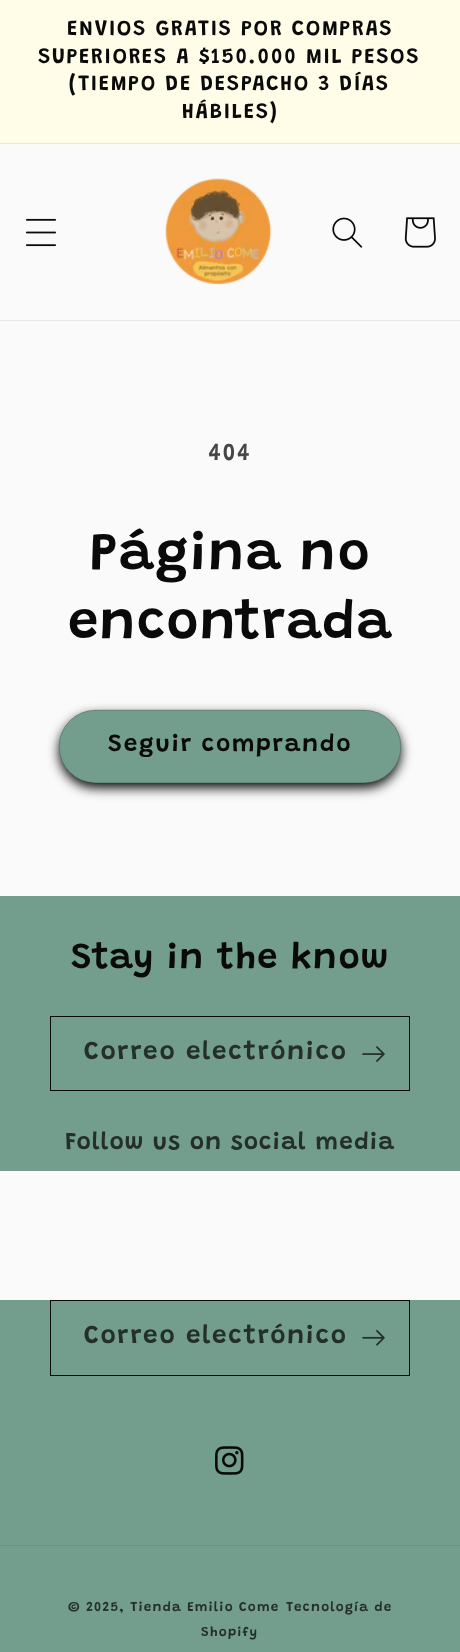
async function draw(canvas) {
	canvas.width = 460;
	canvas.height = 1652;
	const c = canvas.getContext('2d');
	c.miterLimit = 4;
	c.fontKerning = 'normal';
	async function loadImage(src) {
		const img = new Image();
		img.src = src;
		await img.decode();
		return img;
	}

	c.fillStyle = '#fafafa';
	c.fillRect(0, 0, 460, 1652);
	c.fillStyle = '#fffce7';
	c.fillRect(0, 0, 460, 143);
	c.fillStyle = '#ebe9d5';
	c.fillRect(0, 143, 460, 1);
	c.letterSpacing = '1.6px';
	c.font = '600 21.75px Grandstander';
	c.fillStyle = '#0a0a0b';
	for (const [text, x, y] of [
		['ENVIOS GRATIS POR COMPRAS', 67, 35],
		['SUPERIORES A $150.000 MIL PESOS', 38, 63],
		['(TIEMPO DE DESPACHO 3 DÍAS', 69, 90],
		['HÁBILES)', 182, 118],
	]) {
		c.fillText(text, x, y);
	}
	c.fillStyle = '#e7e7e7';
	c.fillRect(0, 320, 460, 1);
	c.drawImage(await loadImage('img1.png'), 25, 218, 31, 29);
	c.drawImage(await loadImage('img2.png'), 165, 178, 107, 107);
	c.drawImage(await loadImage('img3.png'), 332, 217, 31, 31);
	c.drawImage(await loadImage('img4.png'), 404, 217, 32, 31);
	c.letterSpacing = '1px';
	c.font = '600 24.4px Grandstander';
	c.fillStyle = '#464647';
	c.fillText('404', 208, 460);
	c.letterSpacing = '1.1px';
	c.font = '600 54.5px Grandstander';
	c.fillStyle = '#0a0a0b';
	c.fillText('Página no', 90, 569);
	c.fillText('encontrada', 68, 638);
	c.filter = 'blur(6px)';
	c.beginPath();
	c.roundRect(59, 715, 342, 73, 36.5);
	c.fill();
	c.filter = 'none';
	c.fillStyle = '#739d8c';
	c.beginPath();
	c.roundRect(59, 710, 342, 73, 36.5);
	c.fill();
	c.beginPath();
	c.roundRect(59.2, 710.2, 341.6, 72.6, 36.3);
	c.strokeStyle = '#0a0a0b80';
	c.lineWidth = 0.4;
	c.stroke();
	c.letterSpacing = '1.6px';
	c.font = '600 24.4px Grandstander';
	c.fillStyle = '#0a0a0b';
	c.fillText('Seguir comprando', 108, 751);
	c.fillStyle = '#739d8c';
	c.fillRect(0, 896, 460, 275);
	c.letterSpacing = '1.1px';
	c.font = '600 36.25px Grandstander';
	c.fillStyle = '#0a0a0b';
	c.fillText('Stay in the know', 71, 968);
	c.strokeStyle = '#0a0a0b';
	c.lineWidth = 1;
	c.strokeRect(50.5, 1016.5, 359, 74);
	c.letterSpacing = '1.6px';
	c.font = '600 26px Grandstander';
	c.fillStyle = '#242f2b';
	c.fillText('Correo electrónico', 84, 1059);
	c.drawImage(await loadImage('img5.png'), 362, 1046, 23, 16);
	c.letterSpacing = '1px';
	c.font = '600 24.4px Grandstander';
	c.fillText('Follow us on social media', 65, 1149);
	c.fillStyle = '#739d8c';
	c.fillRect(0, 1300, 460, 352);
	c.strokeRect(50.5, 1300.5, 359, 75);
	c.letterSpacing = '1.6px';
	c.font = '600 26px Grandstander';
	c.fillStyle = '#242f2b';
	c.fillText('Correo electrónico', 84, 1343);
	c.drawImage(await loadImage('img6.png'), 362, 1330, 23, 16);
	c.drawImage(await loadImage('img7.png'), 215, 1446, 29, 29);
	c.fillStyle = '#6b9182';
	c.fillRect(0, 1545, 460, 1);
	c.letterSpacing = '1.15px';
	c.font = '600 13.5px Grandstander';
	c.fillStyle = '#242f2b';
	for (const [text, x, y] of [
		['© 2025, Tienda Emilio Come', 68, 1611],
		['Tecnología de', 286, 1611],
		['Shopify', 201, 1636],
	]) {
		c.fillText(text, x, y);
	}
}

draw(document.querySelector('canvas'));
